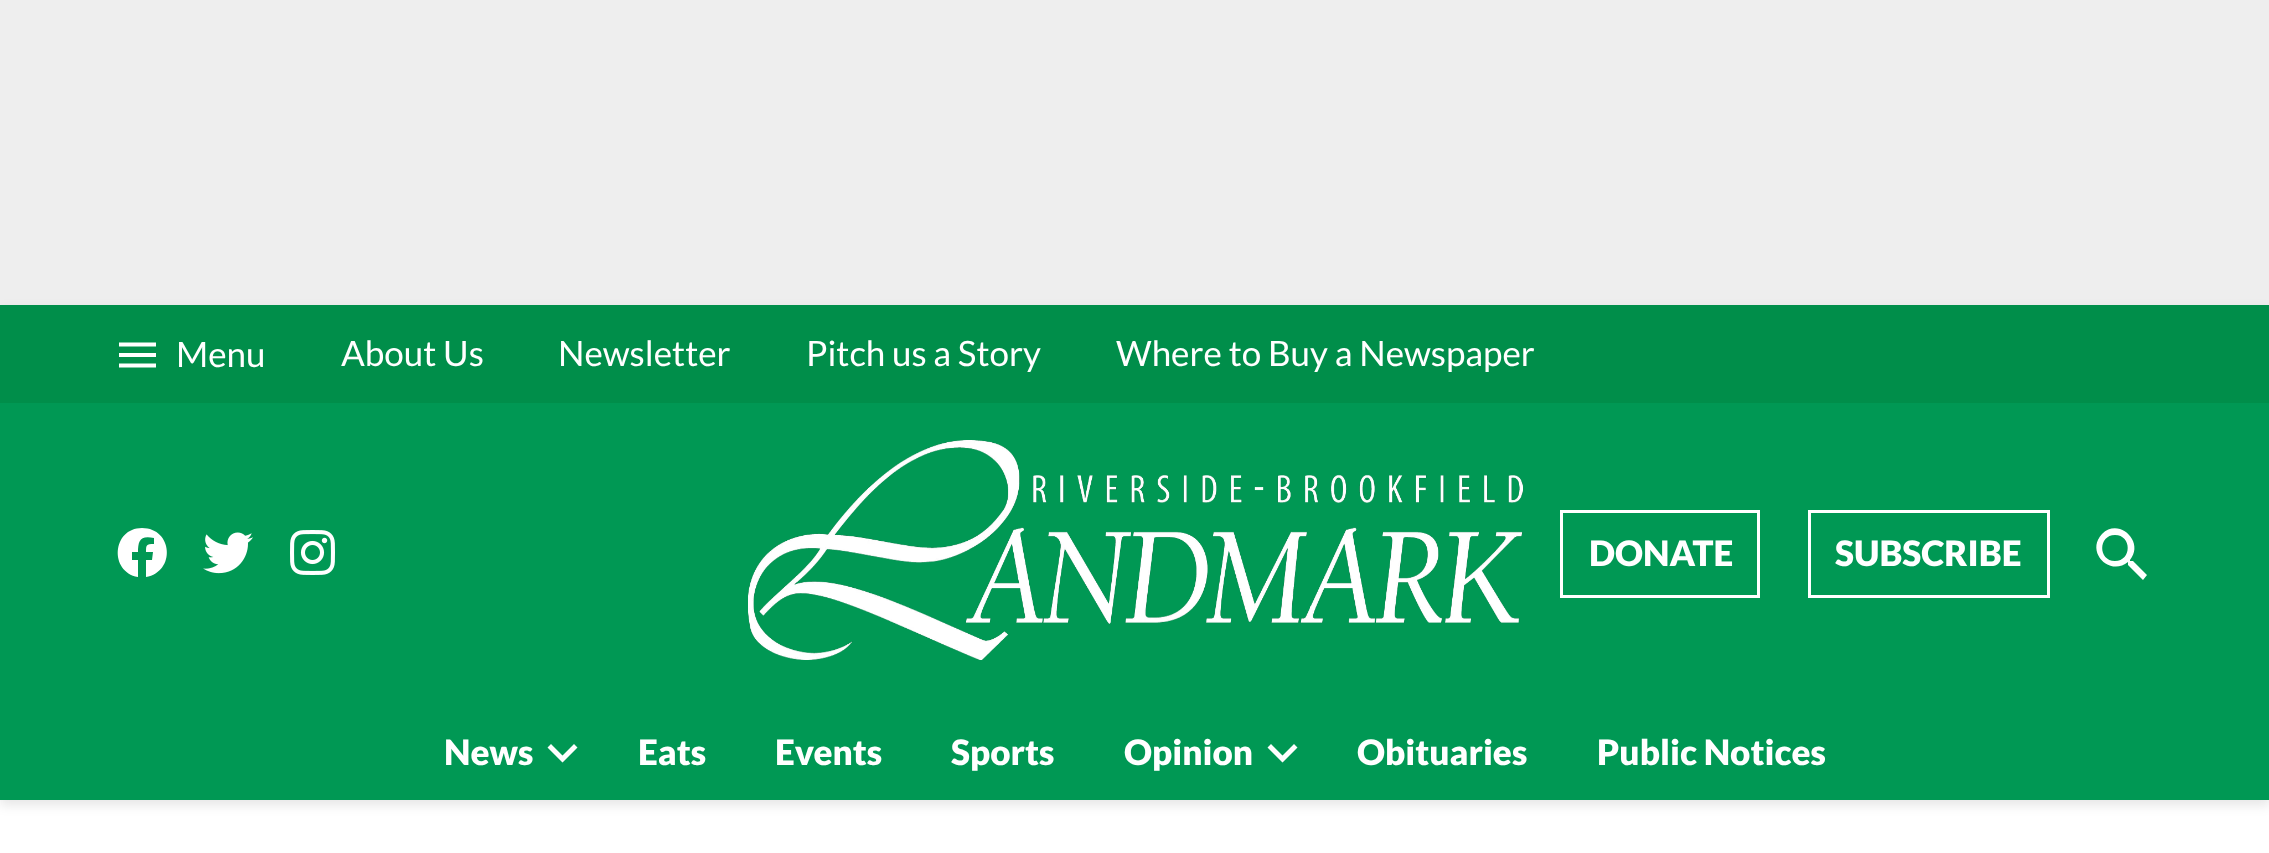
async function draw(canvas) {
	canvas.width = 2269;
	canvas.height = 853;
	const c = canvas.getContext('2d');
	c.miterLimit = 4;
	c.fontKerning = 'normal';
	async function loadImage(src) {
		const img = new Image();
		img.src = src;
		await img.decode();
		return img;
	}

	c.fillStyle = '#fff';
	c.fillRect(0, 0, 2269, 853);
	c.fillStyle = '#eee';
	c.fillRect(0, 0, 2269, 305);
	c.fillStyle = '#0000001a';
	c.filter = 'blur(6px)';
	c.beginPath();
	c.rect(0, 310, 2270, 495);
	c.fill();
	c.filter = 'none';
	c.fillStyle = '#008e4a';
	c.fillRect(0, 305, 2269, 98);
	c.fillStyle = '#fff';
	c.beginPath();
	c.moveTo(119, 367.5);
	c.lineTo(156, 367.5);
	c.lineTo(156, 363.5);
	c.lineTo(119, 363.5);
	c.closePath();
	c.moveTo(119, 357);
	c.lineTo(156, 357);
	c.lineTo(156, 353);
	c.lineTo(119, 353);
	c.closePath();
	c.moveTo(119, 342.5);
	c.lineTo(119, 346.5);
	c.lineTo(156, 346.5);
	c.lineTo(156, 342.5);
	c.closePath();
	c.fill();
	c.font = '35px Lato';
	for (const [text, x, y] of [
		['Menu', 176, 367],
		['About Us', 341, 366],
		['Newsletter', 558, 366],
		['Pitch us a Story', 806, 366],
		['Where to Buy a Newspaper', 1116, 366],
	]) {
		c.fillText(text, x, y);
	}
	c.fillStyle = '#009854';
	c.fillRect(0, 403, 2269, 397);
	c.fillStyle = '#fff';
	c.beginPath();
	c.moveTo(142, 528);
	c.bezierCurveTo(112, 528, 109, 572, 138, 577);
	c.lineTo(138, 560);
	c.lineTo(132, 560);
	c.lineTo(132, 552);
	c.lineTo(138, 552);
	c.bezierCurveTo(138, 541, 140, 535, 154, 538);
	c.lineTo(154, 544);
	c.bezierCurveTo(146, 544, 146, 545, 146, 552);
	c.lineTo(153, 552);
	c.lineTo(152, 560);
	c.lineTo(146, 560);
	c.lineTo(146, 577);
	c.bezierCurveTo(176, 572, 173, 528, 142, 528);
	c.closePath();
	c.fill();
	c.drawImage(await loadImage('img1.png'), 203, 532, 50, 42);
	c.drawImage(await loadImage('img2.png'), 290, 530, 45, 45);
	c.drawImage(await loadImage('img3.png'), 748, 440, 775, 220);
	c.strokeStyle = '#fff';
	c.lineWidth = 3;
	c.strokeRect(1561.5, 511.5, 197, 85);
	c.font = '900 35px Lato';
	c.fillText('DONATE', 1589, 566);
	c.strokeRect(1809.5, 511.5, 239, 85);
	c.fillText('SUBSCRIBE', 1835, 566);
	c.beginPath();
	c.moveTo(2133, 561);
	c.lineTo(2130, 561);
	c.lineTo(2130, 560);
	c.bezierCurveTo(2145, 542, 2119, 517, 2102, 534);
	c.bezierCurveTo(2085, 552, 2110, 577, 2128, 562);
	c.lineTo(2128, 563);
	c.lineTo(2128, 565);
	c.lineTo(2143, 580);
	c.lineTo(2147, 575);
	c.closePath();
	c.moveTo(2115, 561);
	c.bezierCurveTo(2098, 561, 2098, 535, 2115, 535);
	c.bezierCurveTo(2132, 535, 2132, 561, 2115, 561);
	c.closePath();
	c.fill();
	c.fillText('News', 444, 765);
	c.beginPath();
	c.moveTo(551, 744);
	c.lineTo(562.5, 755.5);
	c.lineTo(574, 744);
	c.lineTo(577.5, 747.5);
	c.lineTo(562.5, 762.5);
	c.lineTo(547.5, 747.5);
	c.closePath();
	c.fill();
	for (const [text, x, y] of [
		['Eats', 638, 765],
		['Events', 775, 765],
		['Sports', 951, 765],
		['Opinion', 1124, 765],
	]) {
		c.fillText(text, x, y);
	}
	c.beginPath();
	c.moveTo(1271, 744);
	c.lineTo(1282.5, 755.5);
	c.lineTo(1294, 744);
	c.lineTo(1297.5, 747.5);
	c.lineTo(1282.5, 762.5);
	c.lineTo(1267.5, 747.5);
	c.closePath();
	c.fill();
	c.fillText('Obituaries', 1357, 765);
	c.fillText('Public Notices', 1597, 765);
}

draw(document.querySelector('canvas'));
